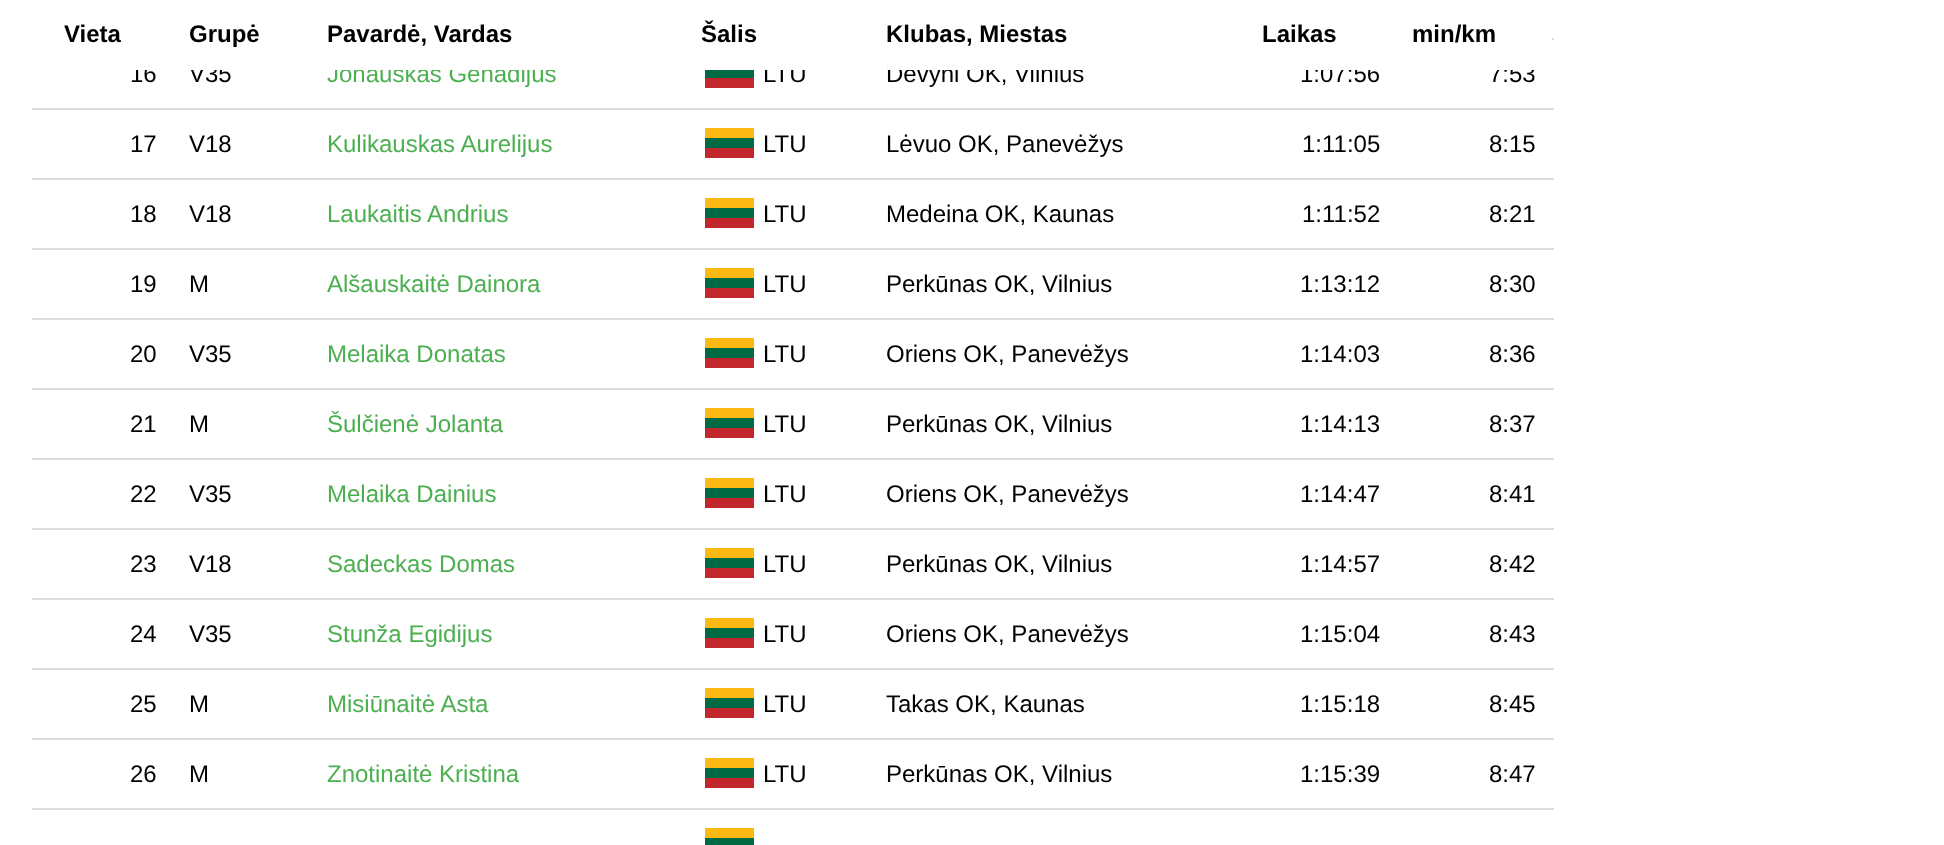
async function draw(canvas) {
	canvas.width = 1944;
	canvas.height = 845;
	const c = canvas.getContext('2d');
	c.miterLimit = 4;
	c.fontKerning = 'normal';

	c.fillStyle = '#fff';
	c.fillRect(0, 0, 1944, 845);
	c.font = '24px Liberation Sans';
	c.fillStyle = '#000';
	c.fillText('16', 130, 82);
	c.fillStyle = '#fff';
	c.fillRect(132, 65, 24, 5);
	c.font = 'bold 24px Liberation Sans';
	c.fillStyle = '#000';
	c.fillText('Vieta', 64, 42);
	c.font = '24px Liberation Sans';
	c.fillText('V35', 189, 82);
	c.fillStyle = '#fff';
	c.fillRect(188, 65, 42, 5);
	c.font = 'bold 24px Liberation Sans';
	c.fillStyle = '#000';
	c.fillText('Grupė', 189, 42);
	c.font = '24px Liberation Sans';
	c.fillStyle = '#4caf50';
	c.fillText('Jonauskas Genadijus', 327, 82);
	c.fillStyle = '#fff';
	c.fillRect(331, 64, 223, 6);
	c.font = 'bold 24px Liberation Sans';
	c.fillStyle = '#000';
	c.fillText('Pavardė, Vardas', 327, 42);
	c.font = '24px Liberation Sans';
	c.fillText('LTU', 763, 82);
	c.fillStyle = '#fff';
	c.fillRect(765, 65, 40, 5);
	c.font = 'bold 24px Liberation Sans';
	c.fillStyle = '#000';
	c.fillText('Šalis', 701, 42);
	c.font = '24px Liberation Sans';
	c.fillText('Devyni OK, Vilnius', 886, 82);
	c.fillStyle = '#fff';
	c.fillRect(888, 64, 194, 6);
	c.font = 'bold 24px Liberation Sans';
	c.fillStyle = '#000';
	c.fillText('Klubas, Miestas', 886, 42);
	c.font = '24px Liberation Sans';
	c.fillText('1:07:56', 1300, 82);
	c.fillStyle = '#fff';
	c.fillRect(1302, 65, 77, 5);
	c.font = 'bold 24px Liberation Sans';
	c.fillStyle = '#000';
	c.fillText('Laikas', 1262, 42);
	c.font = '24px Liberation Sans';
	c.fillText('7:53', 1489, 82);
	c.fillStyle = '#fff';
	c.fillRect(1490, 65, 45, 5);
	c.font = 'bold 24px Liberation Sans';
	c.fillStyle = '#000';
	c.fillText('min/km', 1412, 42);
	for (const [x, y, w, h, color] of [
		[1552, 38, 2, 2, '#ddd'],
		[32, 108, 1522, 2, '#ddd'],
		[705, 70, 49, 8, '#006a44'],
		[705, 78, 49, 10, '#c1272d'],
		[32, 178, 1522, 2, '#ddd'],
	]) {
		c.fillStyle = color;
		c.fillRect(x, y, w, h);
	}
	c.font = '24px Liberation Sans';
	c.fillStyle = '#000';
	c.fillText('17', 130, 152);
	c.fillText('V18', 189, 152);
	c.fillStyle = '#4caf50';
	c.fillText('Kulikauskas Aurelijus', 327, 152);
	for (const [x, y, w, h, color] of [
		[705, 128, 49, 10, '#fdb913'],
		[705, 138, 49, 10, '#006a44'],
		[705, 148, 49, 10, '#c1272d'],
	]) {
		c.fillStyle = color;
		c.fillRect(x, y, w, h);
	}
	c.fillStyle = '#000';
	for (const [text, x, y] of [
		['LTU', 763, 152],
		['Lėvuo OK, Panevėžys', 886, 152],
		['1:11:05', 1302, 152],
		['8:15', 1489, 152],
	]) {
		c.fillText(text, x, y);
	}
	c.fillStyle = '#ddd';
	c.fillRect(32, 248, 1522, 2);
	c.fillStyle = '#000';
	c.fillText('18', 130, 222);
	c.fillText('V18', 189, 222);
	c.fillStyle = '#4caf50';
	c.fillText('Laukaitis Andrius', 327, 222);
	for (const [x, y, w, h, color] of [
		[705, 198, 49, 10, '#fdb913'],
		[705, 208, 49, 10, '#006a44'],
		[705, 218, 49, 10, '#c1272d'],
	]) {
		c.fillStyle = color;
		c.fillRect(x, y, w, h);
	}
	c.fillStyle = '#000';
	for (const [text, x, y] of [
		['LTU', 763, 222],
		['Medeina OK, Kaunas', 886, 222],
		['1:11:52', 1302, 222],
		['8:21', 1489, 222],
	]) {
		c.fillText(text, x, y);
	}
	c.fillStyle = '#ddd';
	c.fillRect(32, 318, 1522, 2);
	c.fillStyle = '#000';
	c.fillText('19', 130, 292);
	c.fillText('M', 189, 292);
	c.fillStyle = '#4caf50';
	c.fillText('Alšauskaitė Dainora', 327, 292);
	for (const [x, y, w, h, color] of [
		[705, 268, 49, 10, '#fdb913'],
		[705, 278, 49, 10, '#006a44'],
		[705, 288, 49, 10, '#c1272d'],
	]) {
		c.fillStyle = color;
		c.fillRect(x, y, w, h);
	}
	c.fillStyle = '#000';
	for (const [text, x, y] of [
		['LTU', 763, 292],
		['Perkūnas OK, Vilnius', 886, 292],
		['1:13:12', 1300, 292],
		['8:30', 1489, 292],
	]) {
		c.fillText(text, x, y);
	}
	c.fillStyle = '#ddd';
	c.fillRect(32, 388, 1522, 2);
	c.fillStyle = '#000';
	c.fillText('20', 130, 362);
	c.fillText('V35', 189, 362);
	c.fillStyle = '#4caf50';
	c.fillText('Melaika Donatas', 327, 362);
	for (const [x, y, w, h, color] of [
		[705, 338, 49, 10, '#fdb913'],
		[705, 348, 49, 10, '#006a44'],
		[705, 358, 49, 10, '#c1272d'],
	]) {
		c.fillStyle = color;
		c.fillRect(x, y, w, h);
	}
	c.fillStyle = '#000';
	for (const [text, x, y] of [
		['LTU', 763, 362],
		['Oriens OK, Panevėžys', 886, 362],
		['1:14:03', 1300, 362],
		['8:36', 1489, 362],
	]) {
		c.fillText(text, x, y);
	}
	c.fillStyle = '#ddd';
	c.fillRect(32, 458, 1522, 2);
	c.fillStyle = '#000';
	c.fillText('21', 130, 432);
	c.fillText('M', 189, 432);
	c.fillStyle = '#4caf50';
	c.fillText('Šulčienė Jolanta', 327, 432);
	for (const [x, y, w, h, color] of [
		[705, 408, 49, 10, '#fdb913'],
		[705, 418, 49, 10, '#006a44'],
		[705, 428, 49, 10, '#c1272d'],
	]) {
		c.fillStyle = color;
		c.fillRect(x, y, w, h);
	}
	c.fillStyle = '#000';
	for (const [text, x, y] of [
		['LTU', 763, 432],
		['Perkūnas OK, Vilnius', 886, 432],
		['1:14:13', 1300, 432],
		['8:37', 1489, 432],
	]) {
		c.fillText(text, x, y);
	}
	c.fillStyle = '#ddd';
	c.fillRect(32, 528, 1522, 2);
	c.fillStyle = '#000';
	c.fillText('22', 130, 502);
	c.fillText('V35', 189, 502);
	c.fillStyle = '#4caf50';
	c.fillText('Melaika Dainius', 327, 502);
	for (const [x, y, w, h, color] of [
		[705, 478, 49, 10, '#fdb913'],
		[705, 488, 49, 10, '#006a44'],
		[705, 498, 49, 10, '#c1272d'],
	]) {
		c.fillStyle = color;
		c.fillRect(x, y, w, h);
	}
	c.fillStyle = '#000';
	for (const [text, x, y] of [
		['LTU', 763, 502],
		['Oriens OK, Panevėžys', 886, 502],
		['1:14:47', 1300, 502],
		['8:41', 1489, 502],
	]) {
		c.fillText(text, x, y);
	}
	c.fillStyle = '#ddd';
	c.fillRect(32, 598, 1522, 2);
	c.fillStyle = '#000';
	c.fillText('23', 130, 572);
	c.fillText('V18', 189, 572);
	c.fillStyle = '#4caf50';
	c.fillText('Sadeckas Domas', 327, 572);
	for (const [x, y, w, h, color] of [
		[705, 548, 49, 10, '#fdb913'],
		[705, 558, 49, 10, '#006a44'],
		[705, 568, 49, 10, '#c1272d'],
	]) {
		c.fillStyle = color;
		c.fillRect(x, y, w, h);
	}
	c.fillStyle = '#000';
	for (const [text, x, y] of [
		['LTU', 763, 572],
		['Perkūnas OK, Vilnius', 886, 572],
		['1:14:57', 1300, 572],
		['8:42', 1489, 572],
	]) {
		c.fillText(text, x, y);
	}
	c.fillStyle = '#ddd';
	c.fillRect(32, 668, 1522, 2);
	c.fillStyle = '#000';
	c.fillText('24', 130, 642);
	c.fillText('V35', 189, 642);
	c.fillStyle = '#4caf50';
	c.fillText('Stunža Egidijus', 327, 642);
	for (const [x, y, w, h, color] of [
		[705, 618, 49, 10, '#fdb913'],
		[705, 628, 49, 10, '#006a44'],
		[705, 638, 49, 10, '#c1272d'],
	]) {
		c.fillStyle = color;
		c.fillRect(x, y, w, h);
	}
	c.fillStyle = '#000';
	for (const [text, x, y] of [
		['LTU', 763, 642],
		['Oriens OK, Panevėžys', 886, 642],
		['1:15:04', 1300, 642],
		['8:43', 1489, 642],
	]) {
		c.fillText(text, x, y);
	}
	c.fillStyle = '#ddd';
	c.fillRect(32, 738, 1522, 2);
	c.fillStyle = '#000';
	c.fillText('25', 130, 712);
	c.fillText('M', 189, 712);
	c.fillStyle = '#4caf50';
	c.fillText('Misiūnaitė Asta', 327, 712);
	for (const [x, y, w, h, color] of [
		[705, 688, 49, 10, '#fdb913'],
		[705, 698, 49, 10, '#006a44'],
		[705, 708, 49, 10, '#c1272d'],
	]) {
		c.fillStyle = color;
		c.fillRect(x, y, w, h);
	}
	c.fillStyle = '#000';
	for (const [text, x, y] of [
		['LTU', 763, 712],
		['Takas OK, Kaunas', 886, 712],
		['1:15:18', 1300, 712],
		['8:45', 1489, 712],
	]) {
		c.fillText(text, x, y);
	}
	c.fillStyle = '#ddd';
	c.fillRect(32, 808, 1522, 2);
	c.fillStyle = '#000';
	c.fillText('26', 130, 782);
	c.fillText('M', 189, 782);
	c.fillStyle = '#4caf50';
	c.fillText('Znotinaitė Kristina', 327, 782);
	for (const [x, y, w, h, color] of [
		[705, 758, 49, 10, '#fdb913'],
		[705, 768, 49, 10, '#006a44'],
		[705, 778, 49, 10, '#c1272d'],
	]) {
		c.fillStyle = color;
		c.fillRect(x, y, w, h);
	}
	c.fillStyle = '#000';
	for (const [text, x, y] of [
		['LTU', 763, 782],
		['Perkūnas OK, Vilnius', 886, 782],
		['1:15:39', 1300, 782],
		['8:47', 1489, 782],
	]) {
		c.fillText(text, x, y);
	}
	c.fillStyle = '#fdb913';
	c.fillRect(705, 828, 49, 10);
	c.fillStyle = '#006a44';
	c.fillRect(705, 838, 49, 7);
}

draw(document.querySelector('canvas'));
